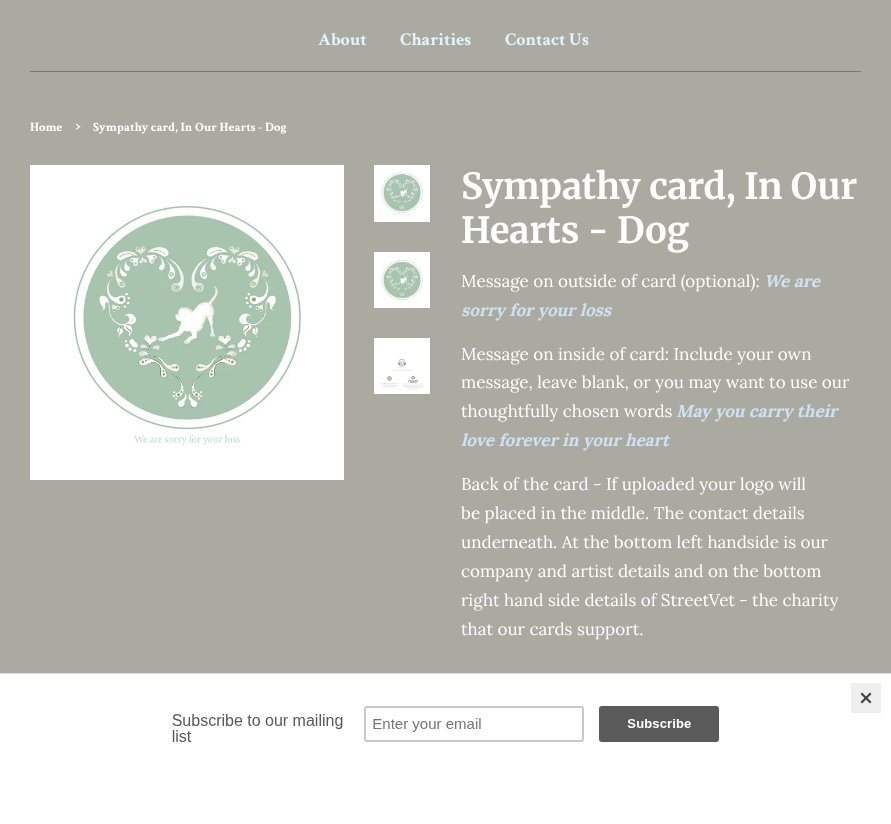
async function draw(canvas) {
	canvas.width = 891;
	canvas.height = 824;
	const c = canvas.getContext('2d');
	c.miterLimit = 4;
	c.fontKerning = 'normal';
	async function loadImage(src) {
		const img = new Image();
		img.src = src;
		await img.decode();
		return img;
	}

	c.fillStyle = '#aaaaa1';
	c.fillRect(0, 0, 891, 824);
	c.fillStyle = '#797976';
	c.fillRect(30, 71, 831, 1);
	c.font = 'bold 18px Crimson Text';
	c.fillStyle = '#e1f4ff';
	for (const [text, x, y] of [
		['About', 318, 45],
		['Charities', 400, 45],
		['Contact Us', 505, 45],
	]) {
		c.fillText(text, x, y);
	}
	c.font = 'bold 12.75px Crimson Text';
	c.fillStyle = '#fff';
	c.fillText('Home', 30, 131);
	c.font = 'bold 18px Crimson Text';
	c.fillText('›', 75, 131);
	c.font = 'bold 12.75px Crimson Text';
	c.fillText('Sympathy card, In Our Hearts - Dog', 93, 131);
	c.drawImage(await loadImage('img1.png'), 30, 165, 314, 315);
	c.drawImage(await loadImage('img2.png'), 374, 165, 56, 57);
	c.drawImage(await loadImage('img3.png'), 374, 252, 56, 56);
	c.drawImage(await loadImage('img4.png'), 374, 338, 56, 56);
	c.font = '300 36px Merriweather';
	c.fillText('Sympathy card, In Our', 461, 199);
	c.fillText('Hearts - Dog', 461, 243);
	c.font = '17px Lora';
	c.fillText('Message on outside of card (optional):', 461, 287);
	c.font = 'italic bold 17px Lora';
	c.fillStyle = '#cfe2f3';
	c.fillText('We are', 764, 287);
	c.fillText('sorry for your loss', 461, 316);
	c.font = '17px Lora';
	c.fillStyle = '#fff';
	for (const [text, x, y] of [
		['Message on inside of card: Include your own', 461, 360],
		['message, leave blank, or you may want to use our', 461, 388],
		['thoughtfully chosen words', 461, 417],
	]) {
		c.fillText(text, x, y);
	}
	c.font = 'italic bold 17px Lora';
	c.fillStyle = '#cfe2f3';
	c.fillText('May you carry their', 676, 417);
	c.fillText('love forever in your heart', 461, 446);
	c.font = '17px Lora';
	c.fillStyle = '#fff';
	for (const [text, x, y] of [
		['Back of the card - If uploaded your logo will', 461, 490],
		['be placed in the middle. The contact details', 461, 519],
		['underneath. At the bottom left handside is our', 461, 548],
		['company and artist details and on the bottom', 461, 577],
		['right hand side details of StreetVet - the charity', 461, 606],
		['that our cards support.', 461, 635],
	]) {
		c.fillText(text, x, y);
	}
	c.fillRect(0, 674, 891, 150);
	c.fillStyle = '#e0e0e0';
	c.fillRect(0, 673, 891, 1);
	c.drawImage(await loadImage('img5.png'), 172, 706, 547, 36);
	c.fillStyle = '#efefef';
	c.fillRect(851, 683, 30, 30);
	c.fillStyle = '#414141';
	c.beginPath();
	c.moveTo(870, 692.5);
	c.lineTo(871.5, 694);
	c.lineTo(862, 703.5);
	c.lineTo(860.5, 702);
	c.closePath();
	c.fill();
	c.beginPath();
	c.moveTo(860.5, 694);
	c.lineTo(862, 692.5);
	c.lineTo(871.5, 702);
	c.lineTo(870, 703.5);
	c.closePath();
	c.fill();
}

draw(document.querySelector('canvas'));
